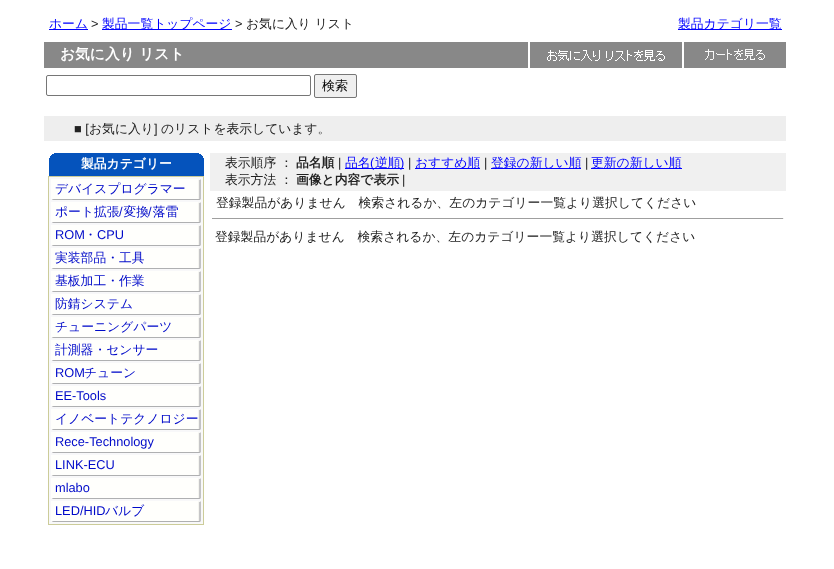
async function draw(canvas) {
	canvas.width = 834;
	canvas.height = 569;
	const c = canvas.getContext('2d');
	c.miterLimit = 4;
	c.fontKerning = 'normal';
	async function loadImage(src) {
		const img = new Image();
		img.src = src;
		await img.decode();
		return img;
	}

	c.fillStyle = '#fff';
	c.fillRect(0, 0, 834, 569);
	c.fillStyle = '#00f';
	c.fillRect(49, 29, 39, 1);
	c.font = '500 12.8px WenQuanYi Zen Hei';
	c.fillText('ホーム', 49, 28);
	c.font = '12.8px Liberation Sans';
	c.fillStyle = '#222';
	c.fillText('>', 91, 28);
	c.fillStyle = '#00f';
	c.fillRect(102, 29, 130, 1);
	c.font = '500 12.8px WenQuanYi Zen Hei';
	c.fillText('製品一覧トップページ', 102, 28);
	c.font = '12.8px Liberation Sans';
	c.fillStyle = '#222';
	c.fillText('>', 235, 28);
	c.font = '500 12.8px WenQuanYi Zen Hei';
	c.fillText('お気に入り リスト', 246, 28);
	c.fillStyle = '#00f';
	c.fillRect(678, 29, 104, 1);
	c.fillText('製品カテゴリ一覧', 678, 28);
	c.fillStyle = '#888';
	c.fillRect(44, 42, 484, 26);
	c.font = 'bold 14.75px WenQuanYi Zen Hei';
	c.fillStyle = '#fff';
	c.fillText('お気に入り リスト', 60, 59);
	c.fillStyle = '#888';
	c.fillRect(530, 42, 152, 26);
	c.drawImage(await loadImage('img1.png'), 547, 50, 118, 11);
	c.fillRect(684, 42, 102, 26);
	c.drawImage(await loadImage('img2.png'), 705, 49, 60, 11);
	c.beginPath();
	c.roundRect(46.5, 75.5, 264, 20, 1.5);
	c.strokeStyle = '#767676';
	c.stroke();
	c.fillStyle = '#efefef';
	c.beginPath();
	c.roundRect(314.5, 74.5, 42, 23, 1.5);
	c.fill();
	c.stroke();
	c.font = '500 13px WenQuanYi Zen Hei';
	c.fillStyle = '#000';
	c.fillText('検索', 322, 90);
	c.fillStyle = '#eee';
	c.fillRect(44, 116, 742, 25);
	c.font = '12.8px Liberation Sans';
	c.fillStyle = '#222';
	c.fillText('■ [', 74, 133);
	c.font = '500 12.8px WenQuanYi Zen Hei';
	c.fillText('お気に入り', 89, 133);
	c.font = '12.8px Liberation Sans';
	c.fillText(']', 154, 133);
	c.font = '500 12.8px WenQuanYi Zen Hei';
	c.fillText('のリストを表示しています。', 161, 133);
	c.fillStyle = '#0553bc';
	c.fillRect(49, 153, 155, 23);
	c.drawImage(await loadImage('img3.png'), 49, 153, 5, 5);
	c.drawImage(await loadImage('img4.png'), 199, 153, 5, 5);
	c.font = 'bold 12.8px WenQuanYi Zen Hei';
	c.fillStyle = '#fff';
	c.fillText('製品カテゴリー', 81, 168);
	c.fillStyle = '#cc9';
	c.fillRect(48, 176, 156, 349);
	c.fillStyle = '#f8f8f9';
	c.fillRect(49, 177, 154, 347);
	c.drawImage(await loadImage('img5.png'), 51, 179, 150, 21);
	c.font = '500 12.8px WenQuanYi Zen Hei';
	c.fillStyle = '#000ac9';
	c.fillText('デバイスプログラマー', 55, 193);
	c.drawImage(await loadImage('img5.png'), 51, 202, 150, 21);
	c.fillText('ポート拡張 変換 落雷', 55, 216);
	c.font = '12.8px Liberation Sans';
	c.fillText('/', 119, 216);
	c.fillText('/', 148, 216);
	c.drawImage(await loadImage('img5.png'), 51, 225, 150, 21);
	c.fillText('ROM', 55, 239);
	c.font = '500 12.8px WenQuanYi Zen Hei';
	c.fillText('・', 84, 239);
	c.font = '12.8px Liberation Sans';
	c.fillText('CPU', 97, 239);
	c.drawImage(await loadImage('img5.png'), 51, 248, 150, 21);
	c.font = '500 12.8px WenQuanYi Zen Hei';
	c.fillText('実装部品・工具', 55, 262);
	c.drawImage(await loadImage('img5.png'), 51, 271, 150, 21);
	c.fillText('基板加工・作業', 55, 285);
	c.drawImage(await loadImage('img5.png'), 51, 294, 150, 21);
	c.fillText('防錆システム', 55, 308);
	c.drawImage(await loadImage('img5.png'), 51, 317, 150, 21);
	c.fillText('チューニングパーツ', 55, 331);
	c.drawImage(await loadImage('img5.png'), 51, 340, 150, 21);
	c.fillText('計測器・センサー', 55, 354);
	c.drawImage(await loadImage('img5.png'), 51, 363, 150, 21);
	c.font = '12.8px Liberation Sans';
	c.fillText('ROM', 55, 377);
	c.font = '500 12.8px WenQuanYi Zen Hei';
	c.fillText('チューン', 84, 377);
	c.drawImage(await loadImage('img5.png'), 51, 386, 150, 21);
	c.font = '12.8px Liberation Sans';
	c.fillText('EE-Tools', 55, 400);
	c.drawImage(await loadImage('img5.png'), 51, 409, 150, 21);
	c.font = '500 12.8px WenQuanYi Zen Hei';
	c.fillText('イノベートテクノロジー', 55, 423);
	c.drawImage(await loadImage('img5.png'), 51, 432, 150, 21);
	c.font = '12.8px Liberation Sans';
	c.fillText('Rece-Technology', 55, 446);
	c.drawImage(await loadImage('img5.png'), 51, 455, 150, 21);
	c.fillText('LINK-ECU', 55, 469);
	c.drawImage(await loadImage('img5.png'), 51, 478, 150, 21);
	c.fillText('mlabo', 55, 492);
	c.drawImage(await loadImage('img5.png'), 51, 501, 150, 21);
	c.fillText('LED/HID', 55, 515);
	c.font = '500 12.8px WenQuanYi Zen Hei';
	c.fillText('バルブ', 105, 515);
	c.fillStyle = '#f0f0f0';
	c.fillRect(210, 153, 576, 38);
	c.fillStyle = '#222';
	c.fillText('表示順序 ：', 225, 167);
	c.font = 'bold 12.8px WenQuanYi Zen Hei';
	c.fillText('品名順', 296, 167);
	c.font = '12.8px Liberation Sans';
	c.fillText('|', 338, 167);
	c.fillStyle = '#00f';
	c.fillRect(345, 168, 59, 1);
	c.font = '500 12.8px WenQuanYi Zen Hei';
	c.fillText('品名', 345, 167);
	c.font = '12.8px Liberation Sans';
	c.fillText('(', 370, 167);
	c.font = '500 12.8px WenQuanYi Zen Hei';
	c.fillText('逆順', 375, 167);
	c.font = '12.8px Liberation Sans';
	c.fillText(')', 400, 167);
	c.fillStyle = '#222';
	c.fillText('|', 408, 167);
	c.fillStyle = '#00f';
	c.fillRect(415, 168, 65, 1);
	c.font = '500 12.8px WenQuanYi Zen Hei';
	c.fillText('おすすめ順', 415, 167);
	c.font = '12.8px Liberation Sans';
	c.fillStyle = '#222';
	c.fillText('|', 484, 167);
	c.fillStyle = '#00f';
	c.fillRect(491, 168, 90, 1);
	c.font = '500 12.8px WenQuanYi Zen Hei';
	c.fillText('登録の新しい順', 491, 167);
	c.font = '12.8px Liberation Sans';
	c.fillStyle = '#222';
	c.fillText('|', 585, 167);
	c.fillStyle = '#00f';
	c.fillRect(591, 168, 91, 1);
	c.font = '500 12.8px WenQuanYi Zen Hei';
	c.fillText('更新の新しい順', 591, 167);
	c.fillStyle = '#222';
	c.fillText('表示方法 ：', 225, 184);
	c.font = 'bold 12.8px WenQuanYi Zen Hei';
	c.fillText('画像と内容で表示', 296, 184);
	c.font = '12.8px Liberation Sans';
	c.fillText('|', 402, 184);
	c.font = '500 12.8px WenQuanYi Zen Hei';
	c.fillText('登録製品がありません　検索されるか、左のカテゴリー一覧より選択してください', 216, 207);
	c.fillStyle = '#9f9f9f';
	c.fillRect(212, 218, 572, 1);
	c.fillStyle = '#eee';
	c.fillRect(783, 218, 1, 1);
	c.fillStyle = '#222';
	c.fillText('登録製品がありません　検索されるか、左のカテゴリー一覧より選択してください', 215, 241);
}

draw(document.querySelector('canvas'));
